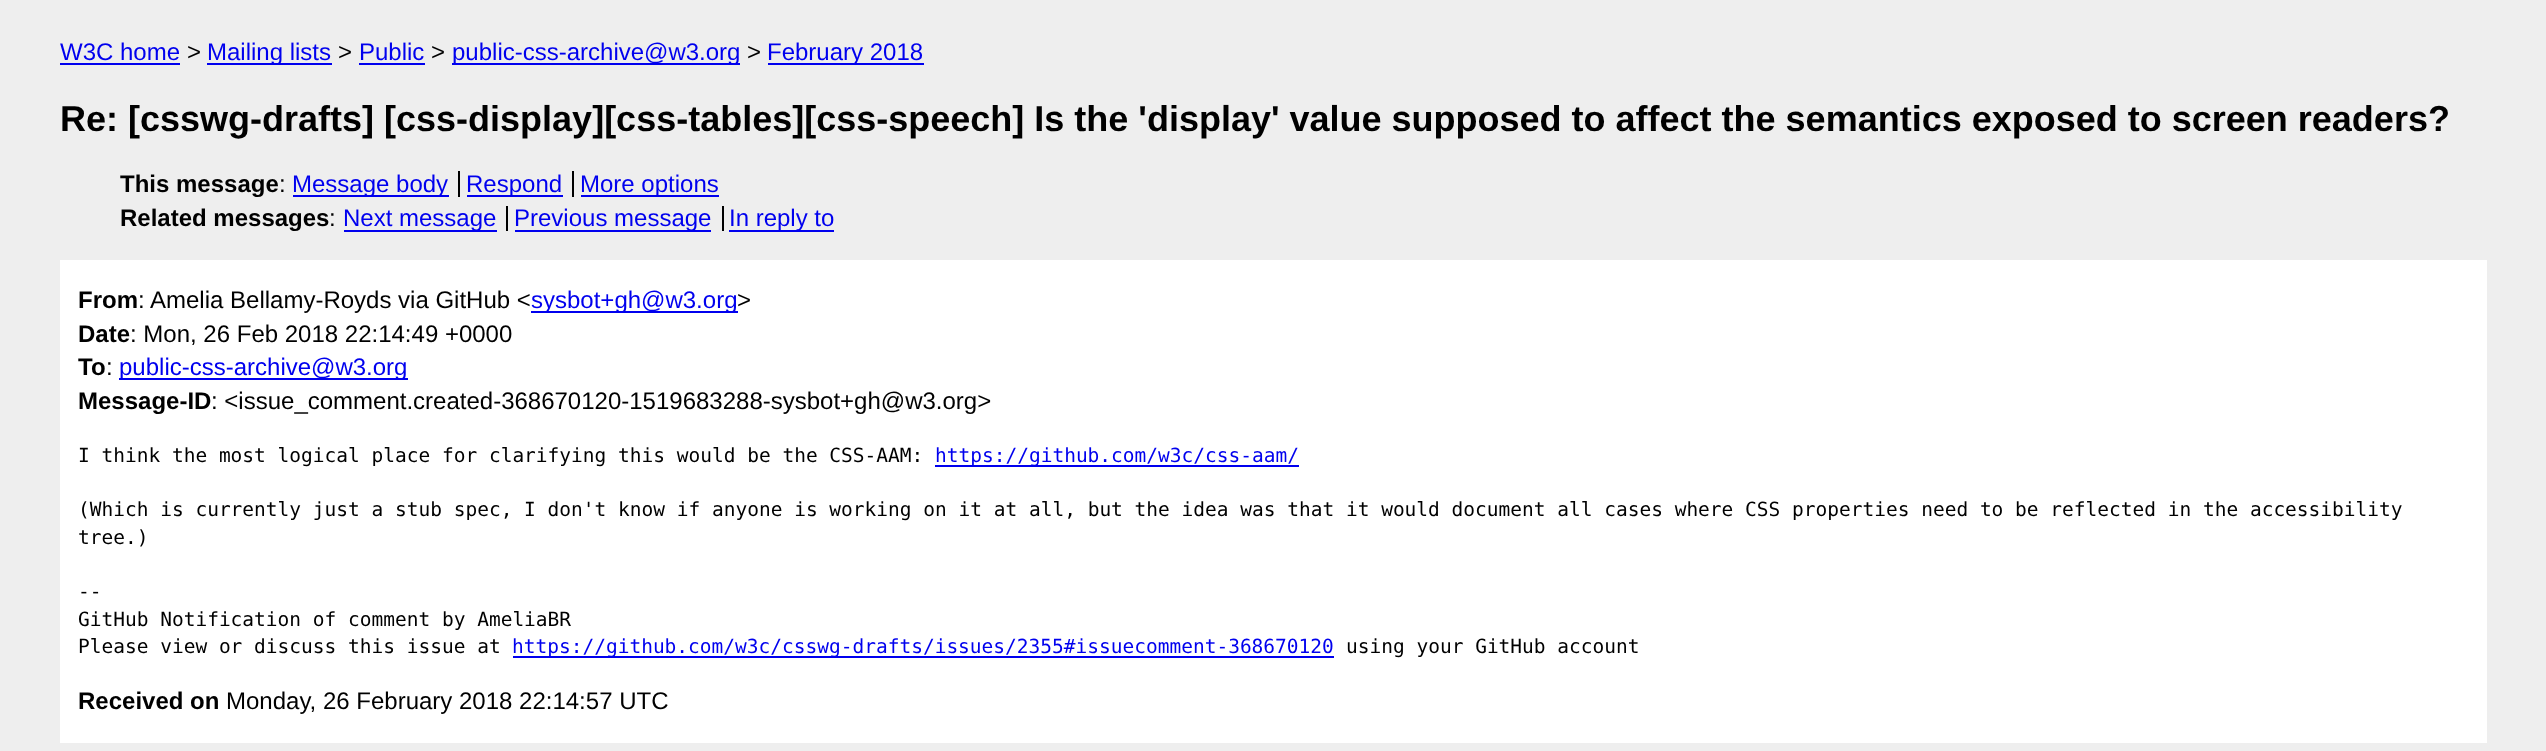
async function draw(canvas) {
	canvas.width = 2546;
	canvas.height = 751;
	const c = canvas.getContext('2d');
	c.miterLimit = 4;
	c.fontKerning = 'normal';

	c.fillStyle = '#eee';
	c.fillRect(0, 0, 2546, 751);
	c.font = '24px Liberation Sans';
	c.fillStyle = '#00e';
	c.fillText('W3C home', 60, 60);
	c.fillRect(60, 63, 120, 2);
	c.fillStyle = '#000';
	c.fillText('>', 187, 60);
	c.fillStyle = '#00e';
	c.fillRect(207, 63, 125, 2);
	c.fillText('Mailing lists', 207, 60);
	c.fillStyle = '#000';
	c.fillText('>', 338, 60);
	c.fillStyle = '#00e';
	c.fillText('Public', 359, 60);
	c.fillRect(359, 63, 66, 2);
	c.fillStyle = '#000';
	c.fillText('>', 431, 60);
	c.fillStyle = '#00e';
	c.fillRect(452, 63, 288, 2);
	c.fillText('public-css-archive@w3.org', 452, 60);
	c.fillStyle = '#000';
	c.fillText('>', 747, 60);
	c.fillStyle = '#00e';
	c.fillRect(768, 63, 156, 2);
	c.fillText('February 2018', 767, 60);
	c.font = 'bold 36px Liberation Sans';
	c.fillStyle = '#000';
	c.fillText('Re: [csswg-drafts] [css-display][css-tables][css-speech] Is the \'display\' value supposed to affect the semantics exposed to screen readers?', 60, 131);
	c.font = 'bold 24px Liberation Sans';
	c.fillText('This message', 120, 192);
	c.font = '24px Liberation Sans';
	c.fillText(':', 279, 192);
	c.fillStyle = '#00e';
	c.fillRect(293, 195, 156, 2);
	c.fillText('Message body', 292, 192);
	c.fillRect(467, 195, 96, 2);
	c.fillText('Respond', 466, 192);
	c.fillStyle = '#000';
	c.fillRect(458, 171, 2, 26);
	c.fillStyle = '#00e';
	c.fillRect(581, 195, 138, 2);
	c.fillText('More options', 580, 192);
	c.fillStyle = '#000';
	c.fillRect(572, 171, 2, 26);
	c.font = 'bold 24px Liberation Sans';
	c.fillText('Related messages', 120, 226);
	c.font = '24px Liberation Sans';
	c.fillText(':', 329, 226);
	c.fillStyle = '#00e';
	c.fillRect(344, 230, 153, 2);
	c.fillText('Next message', 343, 226);
	c.fillRect(515, 230, 196, 2);
	c.fillText('Previous message', 514, 226);
	c.fillStyle = '#000';
	c.fillRect(506, 206, 2, 25);
	c.fillStyle = '#00e';
	c.fillRect(729, 230, 105, 2);
	c.fillText('In reply to', 729, 226);
	c.fillStyle = '#000';
	c.fillRect(722, 206, 2, 25);
	c.fillStyle = '#fff';
	c.fillRect(60, 260, 2427, 483);
	c.font = 'bold 24px Liberation Sans';
	c.fillStyle = '#000';
	c.fillText('From', 78, 308);
	c.font = '24px Liberation Sans';
	c.fillText(': Amelia Bellamy-Royds via GitHub <', 138, 308);
	c.fillStyle = '#00e';
	c.fillRect(531, 311, 207, 2);
	c.fillText('sysbot+gh@w3.org', 531, 308);
	c.fillStyle = '#000';
	c.fillText('>', 737, 308);
	c.font = 'bold 24px Liberation Sans';
	c.fillText('Date', 78, 342);
	c.font = '24px Liberation Sans';
	c.fillText(': Mon, 26 Feb 2018 22:14:49 +0000', 130, 342);
	c.font = 'bold 24px Liberation Sans';
	c.fillText('To', 78, 375);
	c.font = '24px Liberation Sans';
	c.fillText(':', 106, 375);
	c.fillStyle = '#00e';
	c.fillRect(119, 378, 289, 2);
	c.fillText('public-css-archive@w3.org', 119, 375);
	c.font = 'bold 24px Liberation Sans';
	c.fillStyle = '#000';
	c.fillText('Message-ID', 78, 409);
	c.font = '24px Liberation Sans';
	c.fillText(': <issue_comment.created-368670120-1519683288-sysbot+gh@w3.org>', 211, 409);
	c.font = '19.5px DejaVu Sans Mono';
	c.fillText('I think the most logical place for clarifying this would be the CSS-AAM:', 78, 462);
	c.fillStyle = '#00e';
	c.fillRect(935, 465, 364, 2);
	c.fillText('https://github.com/w3c/css-aam/', 935, 462);
	c.fillStyle = '#000';
	for (const [text, x, y] of [
		['(Which is currently just a stub spec, I don\'t know if anyone is working on it at all, but the idea was that it would document all cases where CSS properties need to be reflected in the accessibility', 78, 516],
		['tree.)', 78, 544],
		['--', 78, 598],
		['GitHub Notification of comment by AmeliaBR', 78, 626],
		['Please view or discuss this issue at', 78, 653],
	]) {
		c.fillText(text, x, y);
	}
	c.fillStyle = '#00e';
	c.fillRect(513, 656, 821, 2);
	c.fillText('https://github.com/w3c/csswg-drafts/issues/2355#issuecomment-368670120', 512, 653);
	c.fillStyle = '#000';
	c.fillText('using your GitHub account', 1346, 653);
	c.font = 'bold 24px Liberation Sans';
	c.fillText('Received on', 78, 709);
	c.font = '24px Liberation Sans';
	c.fillText('Monday, 26 February 2018 22:14:57 UTC', 226, 709);
}

draw(document.querySelector('canvas'));
